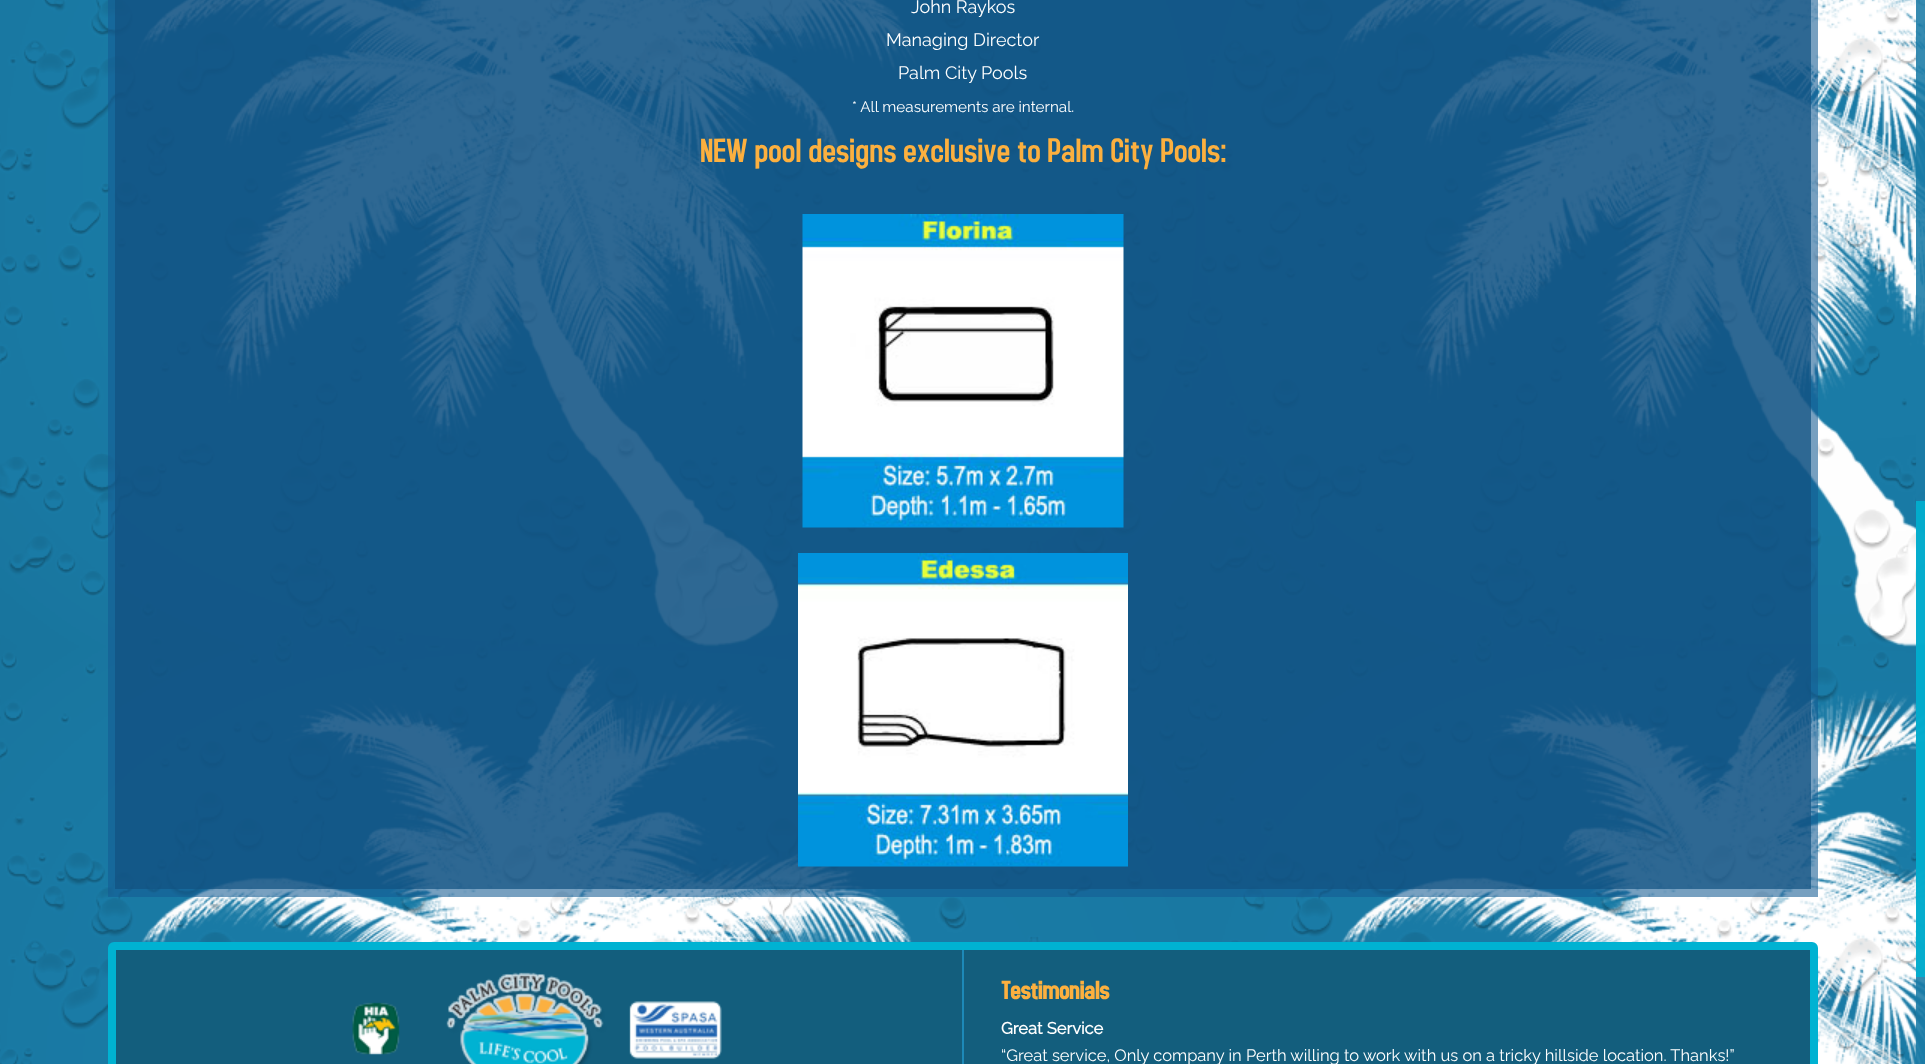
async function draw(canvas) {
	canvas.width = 1925;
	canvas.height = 1064;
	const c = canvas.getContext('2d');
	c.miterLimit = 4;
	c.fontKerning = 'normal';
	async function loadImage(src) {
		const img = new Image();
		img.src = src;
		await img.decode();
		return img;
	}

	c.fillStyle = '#1a7ba6';
	c.fillRect(0, 0, 1925, 1064);
	c.drawImage(await loadImage('img1.png'), 0, 0, 1925, 1064);
	c.fillStyle = '#155b9294';
	c.fillRect(108, 0, 1710, 897);
	c.fillStyle = '#125281b8';
	c.fillRect(115, 0, 1696, 889);
	c.font = '100 18px Raleway';
	c.fillStyle = '#fff';
	for (const [text, x, y] of [
		['John Raykos', 911, 13],
		['Managing Director', 886, 46],
		['Palm City Pools', 898, 79],
	]) {
		c.fillText(text, x, y);
	}
	c.font = '100 15.25px Raleway';
	c.fillText('* All measurements are internal.', 852, 112);
	c.font = '36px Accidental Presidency';
	c.fillStyle = '#fcb03f';
	c.fillText('NEW pool designs exclusive to Palm City Pools:', 700, 162);
	c.drawImage(await loadImage('img2.png'), 802, 214, 322, 314);
	c.drawImage(await loadImage('img3.png'), 798, 553, 330, 314);
	c.fillStyle = '#135e7d';
	c.beginPath();
	c.roundRect(112, 946, 1702, 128, 2);
	c.fill();
	c.strokeStyle = '#00b2d2';
	c.lineWidth = 8;
	c.stroke();
	c.fillStyle = '#1d89b8';
	c.fillRect(962, 950, 2, 114);
	c.drawImage(await loadImage('img4.png'), 352, 972, 370, 92);
	c.font = 'bold 27px Accidental Presidency';
	c.fillStyle = '#fcb03f';
	c.fillText('Testimonials', 1001, 999);
	c.font = 'bold 16.5px Raleway';
	c.fillStyle = '#fff';
	c.fillText('Great Service', 1001, 1034);
	c.font = '100 16.5px Raleway';
	c.fillText('“Great service, Only company in Perth willing to work with us on a tricky hillside location. Thanks!”', 1001, 1061);
	c.fillStyle = '#1a7ba6e0';
	c.fillRect(1916, 0, 9, 1064);
	c.fillStyle = '#00b2d2e0';
	c.fillRect(1916, 501, 9, 476);
}

draw(document.querySelector('canvas'));
